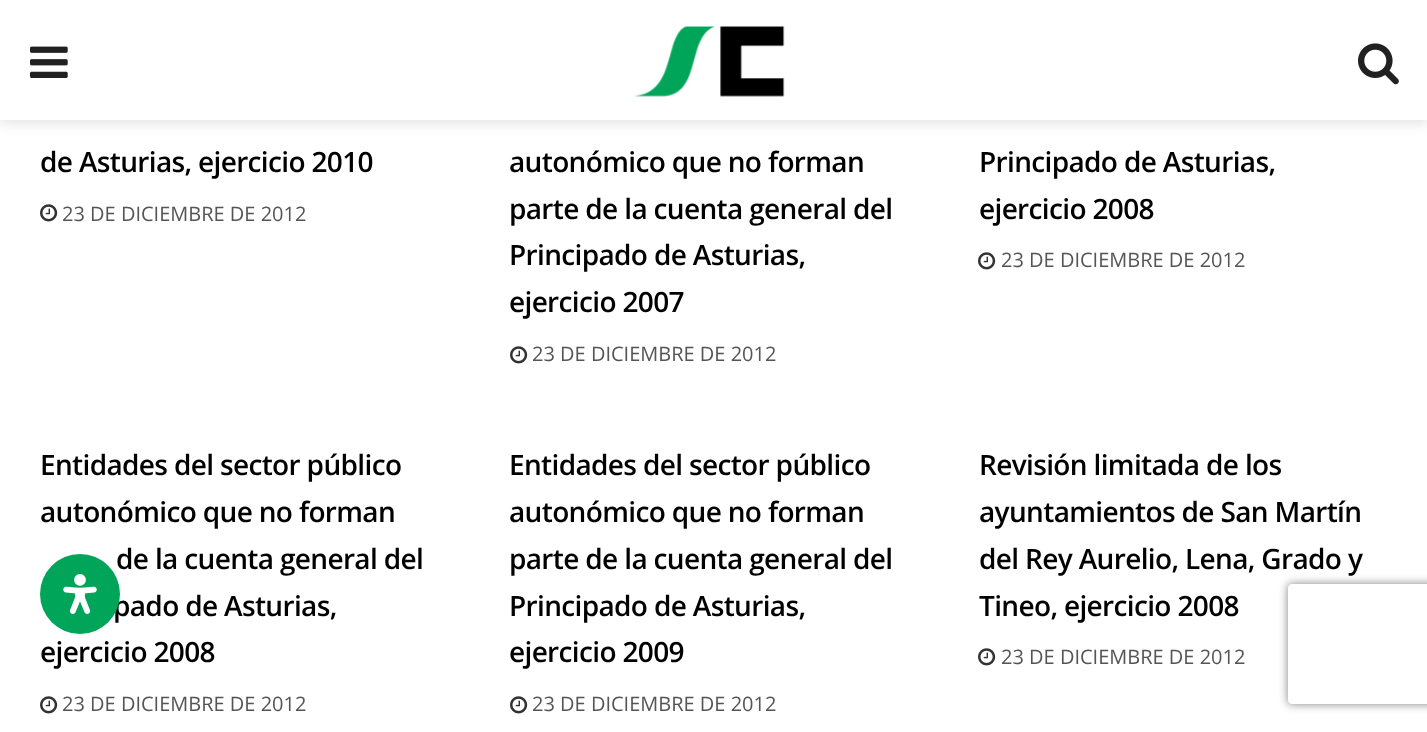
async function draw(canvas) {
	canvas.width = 1427;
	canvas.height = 732;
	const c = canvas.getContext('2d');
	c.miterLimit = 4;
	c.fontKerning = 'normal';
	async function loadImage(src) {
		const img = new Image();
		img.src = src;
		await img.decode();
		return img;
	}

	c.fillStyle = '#fff';
	c.fillRect(0, 0, 1427, 732);
	c.fillStyle = '#0000001a';
	c.filter = 'blur(6px)';
	c.beginPath();
	c.rect(0, 4, 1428, 120);
	c.fill();
	c.filter = 'none';
	c.fillStyle = '#fff';
	c.fillRect(0, 0, 1427, 120);
	c.drawImage(await loadImage('img1.png'), 30, 46, 38, 32);
	c.drawImage(await loadImage('img2.png'), 635, 26, 150, 71);
	c.drawImage(await loadImage('img3.png'), 1358, 43, 41, 42);
	c.letterSpacing = '-0.65px';
	c.font = '600 28px Open Sans';
	c.fillStyle = '#000';
	c.fillText('de Asturias, ejercicio 2010', 40, 172);
	c.drawImage(await loadImage('img4.png'), 40, 204, 18, 18);
	c.letterSpacing = '0px';
	c.font = '20px Open Sans';
	c.fillStyle = '#555';
	c.fillText('23 DE DICIEMBRE DE 2012', 62, 221);
	c.letterSpacing = '-0.65px';
	c.font = '600 28px Open Sans';
	c.fillStyle = '#000';
	for (const [text, x, y] of [
		['autonómico que no forman', 509, 172],
		['parte de la cuenta general del', 509, 219],
		['Principado de Asturias,', 509, 265],
		['ejercicio 2007', 509, 312],
	]) {
		c.fillText(text, x, y);
	}
	c.drawImage(await loadImage('img4.png'), 510, 346, 18, 18);
	c.letterSpacing = '0px';
	c.font = '20px Open Sans';
	c.fillStyle = '#555';
	c.fillText('23 DE DICIEMBRE DE 2012', 532, 361);
	c.letterSpacing = '-0.65px';
	c.font = '600 28px Open Sans';
	c.fillStyle = '#000';
	c.fillText('Principado de Asturias,', 979, 172);
	c.fillText('ejercicio 2008', 979, 219);
	c.drawImage(await loadImage('img4.png'), 978, 252, 18, 18);
	c.letterSpacing = '0px';
	c.font = '20px Open Sans';
	c.fillStyle = '#555';
	c.fillText('23 DE DICIEMBRE DE 2012', 1001, 267);
	c.letterSpacing = '-0.65px';
	c.font = '600 28px Open Sans';
	c.fillStyle = '#000';
	for (const [text, x, y] of [
		['Entidades del sector público', 40, 475],
		['autonómico que no forman', 40, 522],
		['de la cuenta general del', 116, 569],
		['pado de Asturias,', 113, 616],
		['ejercicio 2008', 40, 662],
	]) {
		c.fillText(text, x, y);
	}
	c.drawImage(await loadImage('img4.png'), 40, 696, 18, 18);
	c.letterSpacing = '0px';
	c.font = '20px Open Sans';
	c.fillStyle = '#555';
	c.fillText('23 DE DICIEMBRE DE 2012', 62, 711);
	c.letterSpacing = '-0.65px';
	c.font = '600 28px Open Sans';
	c.fillStyle = '#000';
	for (const [text, x, y] of [
		['Entidades del sector público', 509, 475],
		['autonómico que no forman', 509, 522],
		['parte de la cuenta general del', 509, 569],
		['Principado de Asturias,', 509, 616],
		['ejercicio 2009', 509, 662],
	]) {
		c.fillText(text, x, y);
	}
	c.drawImage(await loadImage('img4.png'), 510, 696, 18, 18);
	c.letterSpacing = '0px';
	c.font = '20px Open Sans';
	c.fillStyle = '#555';
	c.fillText('23 DE DICIEMBRE DE 2012', 532, 711);
	c.letterSpacing = '-0.65px';
	c.font = '600 28px Open Sans';
	c.fillStyle = '#000';
	c.fillText('Revisión limitada de los', 979, 475);
	c.fillText('ayuntamientos de San Martín', 979, 522);
	c.save();
	c.beginPath();
	c.moveTo(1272, 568);
	c.lineTo(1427, 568);
	c.lineTo(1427, 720);
	c.lineTo(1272, 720);
	c.closePath();
	c.moveTo(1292, 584);
	c.lineTo(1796, 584);
	c.bezierCurveTo(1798, 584, 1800, 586, 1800, 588);
	c.lineTo(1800, 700);
	c.bezierCurveTo(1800, 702, 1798, 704, 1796, 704);
	c.lineTo(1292, 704);
	c.bezierCurveTo(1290, 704, 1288, 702, 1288, 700);
	c.lineTo(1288, 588);
	c.bezierCurveTo(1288, 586, 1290, 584, 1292, 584);
	c.closePath();
	c.clip('evenodd');
	c.fillStyle = '#808080';
	c.filter = 'blur(5px)';
	c.beginPath();
	c.roundRect(1288, 584, 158, 120, 4);
	c.fill();
	c.filter = 'none';
	c.restore();
	c.fillText('del Rey Aurelio, Lena, Grado y', 979, 569);
	c.fillText('Tineo, ejercicio 2008', 979, 616);
	c.drawImage(await loadImage('img4.png'), 978, 648, 18, 18);
	c.letterSpacing = '0px';
	c.font = '20px Open Sans';
	c.fillStyle = '#555';
	c.fillText('23 DE DICIEMBRE DE 2012', 1001, 664);
	c.fillStyle = '#00a55a';
	c.beginPath();
	c.arc(80, 594, 40, 0, 2 * Math.PI);
	c.fill();
	c.drawImage(await loadImage('img5.png'), 63, 574, 34, 40);
}

draw(document.querySelector('canvas'));
